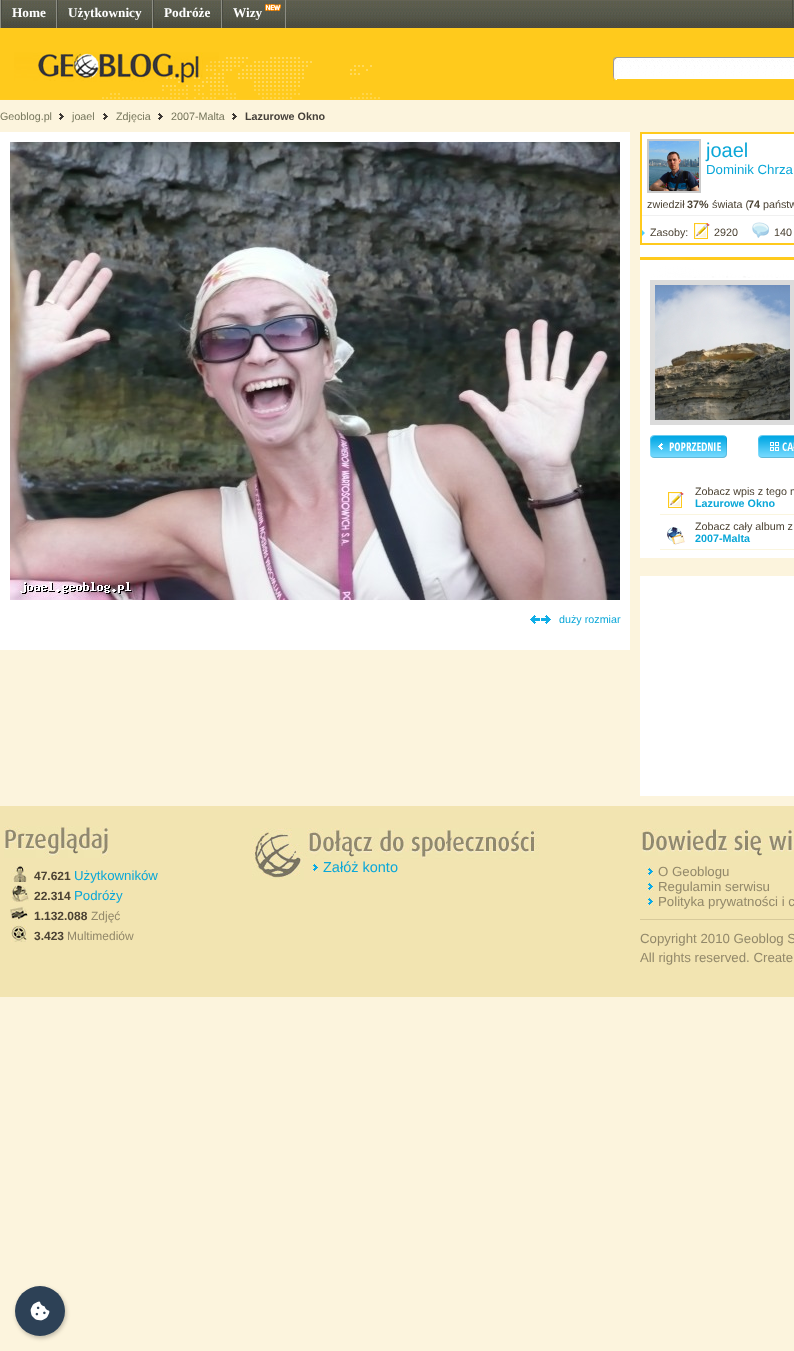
async function draw(canvas) {
	canvas.width = 794;
	canvas.height = 1351;
	const c = canvas.getContext('2d');
	c.miterLimit = 4;
	c.fontKerning = 'normal';
	async function loadImage(src) {
		const img = new Image();
		img.src = src;
		await img.decode();
		return img;
	}

	c.fillStyle = '#fcf4dd';
	c.fillRect(0, 0, 794, 1351);
	c.drawImage(await loadImage('img1.png'), 2, 0, 792, 28);
	for (const [x, y, w, h, color] of [
		[0, 0, 1, 28, '#8c8d83'],
		[56, 0, 1, 28, '#8c8d83'],
		[1, 0, 1, 28, '#494a41'],
	]) {
		c.fillStyle = color;
		c.fillRect(x, y, w, h);
	}
	c.font = 'bold 13.25px Liberation Serif';
	c.fillStyle = '#fff';
	c.fillText('Home', 12, 17);
	c.fillStyle = '#8c8d83';
	c.fillRect(152, 0, 1, 28);
	c.fillStyle = '#494a41';
	c.fillRect(57, 0, 1, 28);
	c.fillStyle = '#fff';
	c.fillText('Użytkownicy', 68, 17);
	c.fillStyle = '#8c8d83';
	c.fillRect(221, 0, 1, 28);
	c.fillStyle = '#494a41';
	c.fillRect(153, 0, 1, 28);
	c.fillStyle = '#fff';
	c.fillText('Podróże', 164, 17);
	c.fillStyle = '#8c8d83';
	c.fillRect(285, 0, 1, 28);
	c.fillStyle = '#494a41';
	c.fillRect(222, 0, 1, 28);
	c.fillStyle = '#fff';
	c.fillText('Wizy', 233, 17);
	c.drawImage(await loadImage('img2.png'), 265, 4, 16, 7);
	c.fillStyle = '#494a41';
	c.fillRect(792, 0, 1, 28);
	c.fillStyle = '#ffca1c';
	c.fillRect(0, 28, 794, 72);
	c.drawImage(await loadImage('img3.png'), 0, 52, 380, 48);
	c.drawImage(await loadImage('img4.png'), 613, 56, 4, 25);
	c.fillStyle = '#fff';
	c.fillRect(617, 78, 177, 1);
	c.drawImage(await loadImage('img5.png'), 617, 56, 177, 22);
	c.font = '10.75px Liberation Sans';
	c.fillStyle = '#76765c';
	c.fillText('Geoblog.pl', 0, 120);
	c.drawImage(await loadImage('img6.png'), 59, 113, 5, 7);
	c.fillText('joael', 72, 120);
	c.drawImage(await loadImage('img6.png'), 103, 113, 5, 7);
	c.fillText('Zdjęcia', 116, 120);
	c.drawImage(await loadImage('img6.png'), 158, 113, 5, 7);
	c.fillText('2007-Malta', 171, 120);
	c.drawImage(await loadImage('img6.png'), 232, 113, 5, 7);
	c.font = 'bold 10.75px Liberation Sans';
	c.fillStyle = '#443f39';
	c.fillText('Lazurowe Okno', 245, 120);
	c.fillStyle = '#fff';
	c.fillRect(640, 134, 154, 424);
	c.strokeStyle = '#ffca1c';
	c.lineWidth = 2;
	c.strokeRect(641, 133, 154, 111);
	c.fillStyle = '#f0f0f0';
	c.fillRect(642, 215, 152, 1);
	c.strokeStyle = '#cacaca';
	c.strokeRect(648, 140, 52, 52);
	c.drawImage(await loadImage('img7.png'), 649, 141, 50, 50);
	c.font = '20px Liberation Sans';
	c.fillStyle = '#0ba7d8';
	c.fillText('joael', 706, 157);
	c.font = '13.25px Liberation Sans';
	c.fillText('Dominik Chrza', 706, 174);
	c.font = '10.75px Liberation Sans';
	c.fillStyle = '#4b4233';
	c.fillText('zwiedził', 647, 208);
	c.font = 'bold 10.75px Liberation Sans';
	c.fillText('37%', 687, 208);
	c.font = '10.75px Liberation Sans';
	c.fillText('świata (', 712, 208);
	c.font = 'bold 10.75px Liberation Sans';
	c.fillText('74', 748, 208);
	c.font = '10.75px Liberation Sans';
	c.fillText('państw', 763, 208);
	c.drawImage(await loadImage('img8.png'), 642, 230, 3, 6);
	c.fillText('Zasoby:', 650, 236);
	c.drawImage(await loadImage('img9.png'), 694, 223, 16, 16);
	c.fillText('2920', 714, 236);
	c.drawImage(await loadImage('img10.png'), 752, 222, 17, 16);
	c.fillText('140', 774, 236);
	c.drawImage(await loadImage('img11.png'), 640, 257, 154, 21);
	c.strokeStyle = '#dbdbdb';
	c.lineWidth = 5;
	c.strokeRect(652.5, 282.5, 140, 140);
	c.drawImage(await loadImage('img12.png'), 655, 285, 135, 135);
	c.drawImage(await loadImage('img13.png'), 650, 435, 77, 23);
	c.drawImage(await loadImage('img14.png'), 758, 435, 36, 23);
	c.fillStyle = '#faf5df';
	c.fillRect(660, 514, 134, 1);
	c.drawImage(await loadImage('img9.png'), 668, 492, 16, 16);
	c.fillStyle = '#4b4233';
	c.fillText('Zobacz wpis z tego m', 695, 495);
	c.font = 'bold 10.75px Liberation Sans';
	c.fillStyle = '#0ba7d8';
	c.fillText('Lazurowe Okno', 695, 507);
	c.fillStyle = '#faf5df';
	c.fillRect(660, 549, 134, 1);
	c.drawImage(await loadImage('img15.png'), 667, 527, 18, 18);
	c.font = '10.75px Liberation Sans';
	c.fillStyle = '#4b4233';
	c.fillText('Zobacz cały album z', 695, 530);
	c.font = 'bold 10.75px Liberation Sans';
	c.fillStyle = '#0ba7d8';
	c.fillText('2007-Malta', 695, 542);
	c.fillStyle = '#fff';
	c.fillRect(640, 576, 154, 220);
	c.fillRect(0, 132, 630, 518);
	c.drawImage(await loadImage('img16.png'), 10, 142, 610, 458);
	c.drawImage(await loadImage('img17.png'), 530, 615, 21, 9);
	c.font = '10.75px Liberation Sans';
	c.fillStyle = '#0ba7d8';
	c.fillText('duży rozmiar', 559, 623);
	c.fillStyle = '#f2e4b1';
	c.fillRect(0, 806, 794, 191);
	c.drawImage(await loadImage('img18.png'), 252, 828, 52, 52);
	c.drawImage(await loadImage('img19.png'), 305, 828, 234, 31);
	c.drawImage(await loadImage('img20.png'), 310, 862, 9, 12);
	c.font = '14.5px Liberation Sans';
	c.fillStyle = '#0ba7d8';
	c.fillText('Załóż konto', 323, 872);
	c.drawImage(await loadImage('img21.png'), 4, 826, 104, 32);
	c.drawImage(await loadImage('img22.png'), 11, 866, 16, 16);
	c.font = 'bold 12px Liberation Sans';
	c.fillStyle = '#4b4233';
	c.fillText('47.621', 34, 880);
	c.font = '13.25px Liberation Sans';
	c.fillStyle = '#0ba7d8';
	c.fillText('Użytkowników', 74, 880);
	c.drawImage(await loadImage('img23.png'), 11, 885, 18, 17);
	c.font = 'bold 12px Liberation Sans';
	c.fillStyle = '#4b4233';
	c.fillText('22.314', 34, 900);
	c.font = '13.25px Liberation Sans';
	c.fillStyle = '#0ba7d8';
	c.fillText('Podróży', 74, 900);
	c.drawImage(await loadImage('img24.png'), 10, 906, 19, 16);
	c.font = 'bold 12px Liberation Sans';
	c.fillStyle = '#4b4233';
	c.fillText('1.132.088', 34, 920);
	c.font = '12px Liberation Sans';
	c.fillStyle = '#92886a';
	c.fillText('Zdjęć', 91, 920);
	c.drawImage(await loadImage('img25.png'), 11, 925, 16, 17);
	c.font = 'bold 12px Liberation Sans';
	c.fillStyle = '#4b4233';
	c.fillText('3.423', 34, 940);
	c.font = '12px Liberation Sans';
	c.fillStyle = '#92886a';
	c.fillText('Multimediów', 67, 940);
	c.drawImage(await loadImage('img26.png'), 642, 828, 152, 28);
	c.fillStyle = '#d7c99a';
	c.fillRect(640, 919, 154, 1);
	c.drawImage(await loadImage('img20.png'), 645, 866, 9, 12);
	c.font = '13.25px Liberation Sans';
	c.fillStyle = '#92886a';
	c.fillText('O Geoblogu', 658, 876);
	c.drawImage(await loadImage('img20.png'), 645, 881, 9, 12);
	c.fillText('Regulamin serwisu', 658, 891);
	c.drawImage(await loadImage('img20.png'), 645, 896, 9, 12);
	for (const [text, x, y] of [
		['Polityka prywatności i c', 658, 906],
		['Copyright 2010 Geoblog S', 640, 943],
		['All rights reserved. Create', 640, 962],
	]) {
		c.fillText(text, x, y);
	}
	c.fillStyle = '#00000040';
	c.filter = 'blur(2px)';
	c.beginPath();
	c.roundRect(16, 1288, 50, 50, 25);
	c.fill();
	c.filter = 'none';
	c.fillStyle = '#2d4156';
	c.beginPath();
	c.arc(40, 1311, 25, 0, 2 * Math.PI);
	c.fill();
	c.drawImage(await loadImage('img27.png'), 30, 1301, 20, 20);
}

draw(document.querySelector('canvas'));
